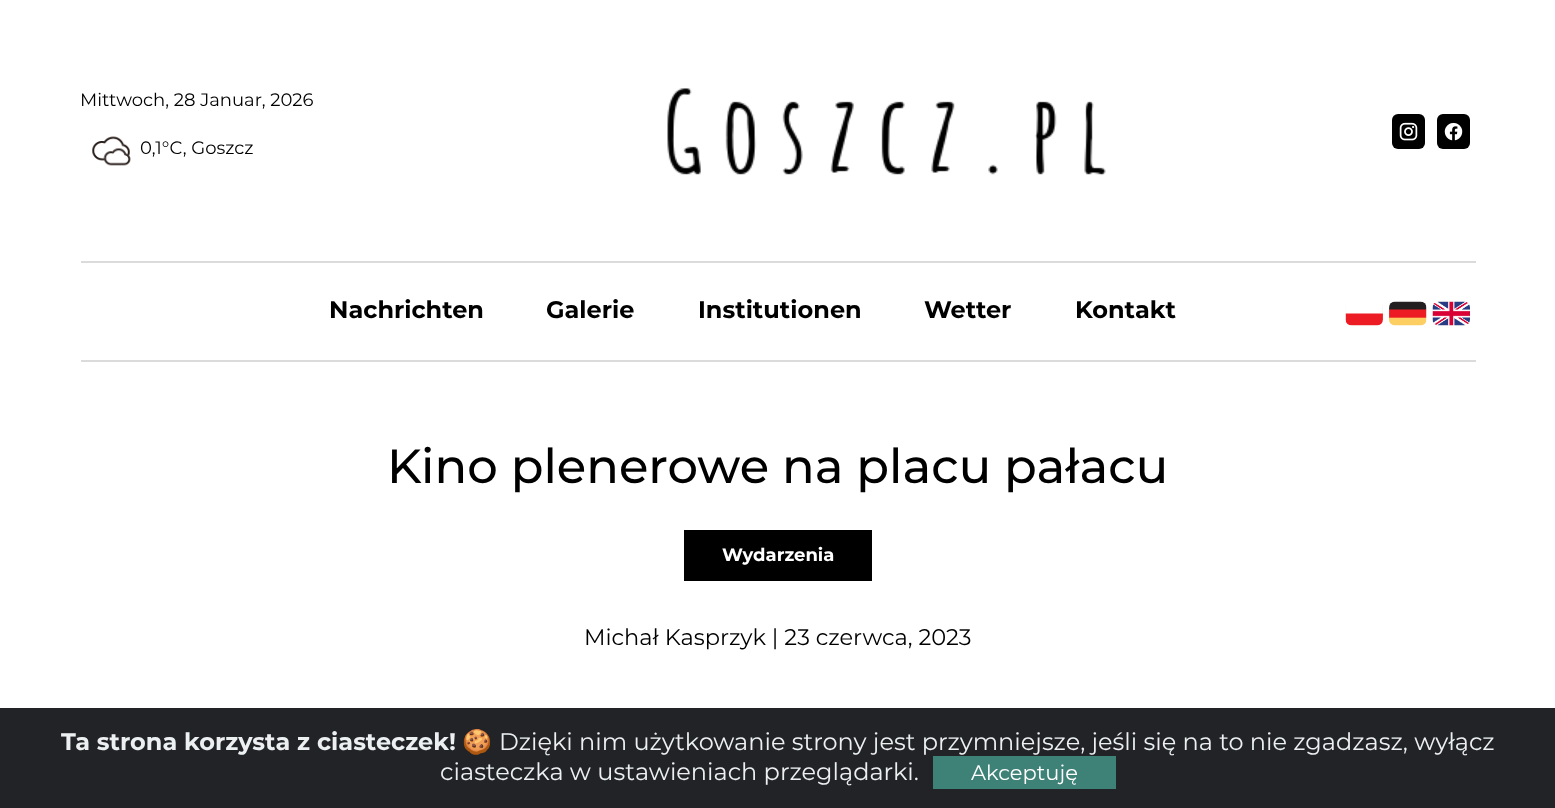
async function draw(canvas) {
	canvas.width = 1555;
	canvas.height = 808;
	const c = canvas.getContext('2d');
	c.miterLimit = 4;
	c.fontKerning = 'normal';
	async function loadImage(src) {
		const img = new Image();
		img.src = src;
		await img.decode();
		return img;
	}

	c.fillStyle = '#fff';
	c.fillRect(0, 0, 1555, 808);
	c.fillStyle = '#dbdbdb';
	c.fillRect(81, 261, 1395, 2);
	c.font = '18px Montserrat';
	c.fillStyle = '#000';
	c.fillText('Mittwoch, 28 Januar, 2026', 80, 106);
	c.drawImage(await loadImage('img1.png'), 92, 136, 39, 30);
	c.fillText('0,1°C, Goszcz', 140, 154);
	c.drawImage(await loadImage('img2.png'), 667, 88, 439, 88);
	c.beginPath();
	c.roundRect(1392, 114, 33, 35, 6);
	c.fill();
	c.drawImage(await loadImage('img3.png'), 1399, 122, 19, 19);
	c.beginPath();
	c.roundRect(1437, 114, 33, 35, 6);
	c.fill();
	c.drawImage(await loadImage('img4.png'), 1444, 122, 19, 19);
	c.fillStyle = '#dbdbdb';
	c.fillRect(81, 360, 1395, 2);
	c.font = 'bold 24px Montserrat';
	c.fillStyle = '#000';
	for (const [text, x, y] of [
		['Nachrichten', 329, 318],
		['Galerie', 546, 318],
		['Institutionen', 698, 318],
		['Wetter', 924, 318],
		['Kontakt', 1075, 318],
	]) {
		c.fillText(text, x, y);
	}
	c.drawImage(await loadImage('img5.png'), 1345, 305, 38, 21);
	c.drawImage(await loadImage('img6.png'), 1389, 301, 38, 25);
	c.drawImage(await loadImage('img7.png'), 1432, 301, 38, 25);
	c.font = '500 48px Montserrat';
	c.fillText('Kino plenerowe na placu pałacu', 387, 483);
	c.fillRect(684, 530, 188, 51);
	c.font = 'bold 18px Montserrat';
	c.fillStyle = '#fff';
	c.fillText('Wydarzenia', 722, 561);
	c.font = '22.5px Montserrat';
	c.fillStyle = '#000';
	c.fillText('Michał Kasprzyk | 23 czerwca, 2023', 584, 645);
	c.fillStyle = '#212327';
	c.fillRect(0, 708, 1555, 100);
	c.font = 'bold 24px Montserrat';
	c.fillStyle = '#ecf0f1';
	c.fillText('Ta strona korzysta z ciasteczek!', 61, 750);
	c.font = '24px Noto Color Emoji';
	c.fillText('🍪', 462, 750);
	c.font = '24px Montserrat';
	c.fillText('Dzięki nim użytkowanie strony jest przymniejsze, jeśli się na to nie zgadzasz, wyłącz', 499, 750);
	c.fillText('ciasteczka w ustawieniach przeglądarki.', 440, 780);
	c.fillStyle = '#3e8177';
	c.fillRect(933, 756, 183, 33);
	c.font = '21px Montserrat';
	c.fillStyle = '#fff';
	c.fillText('Akceptuję', 971, 780);
}

draw(document.querySelector('canvas'));
